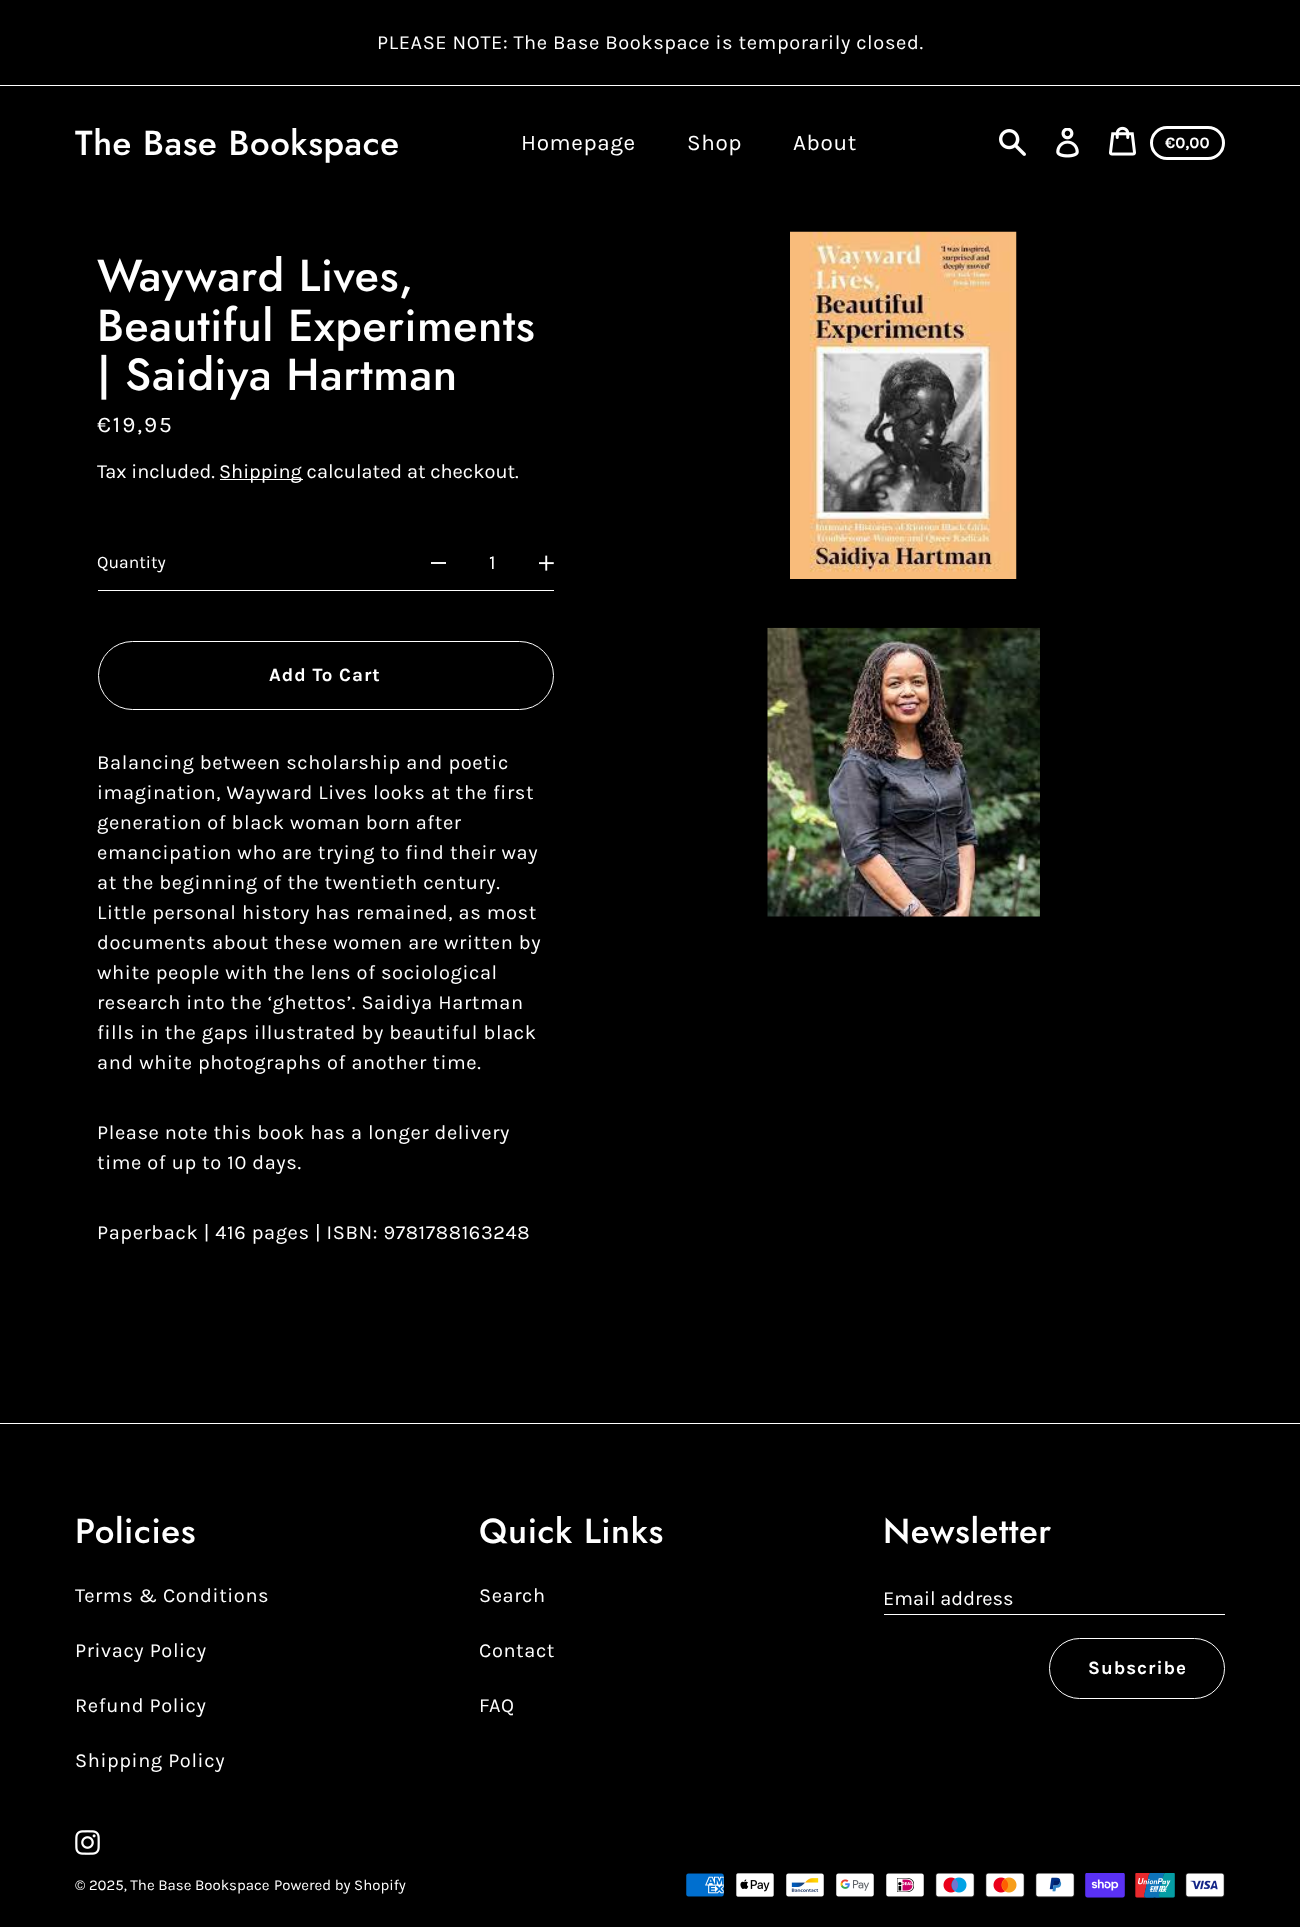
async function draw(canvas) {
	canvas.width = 1300;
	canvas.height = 1927;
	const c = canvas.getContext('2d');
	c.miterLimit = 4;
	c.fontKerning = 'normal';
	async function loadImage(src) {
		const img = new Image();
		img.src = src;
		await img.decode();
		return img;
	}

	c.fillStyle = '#000';
	c.fillRect(0, 0, 1300, 1927);
	c.fillStyle = '#fff';
	c.fillRect(0, 85, 1300, 1);
	c.letterSpacing = '0.62px';
	c.font = '20px Karla';
	c.fillText('PLEASE NOTE: The Base Bookspace is temporarily closed.', 377, 49);
	c.font = '500 34.75px Jost';
	c.fillText('The Base Bookspace', 75, 155);
	c.font = '22.5px Karla';
	for (const [text, x, y] of [
		['Homepage', 521, 150],
		['Shop', 687, 150],
		['About', 793, 150],
	]) {
		c.fillText(text, x, y);
	}
	c.drawImage(await loadImage('img1.png'), 999, 129, 27, 27);
	c.drawImage(await loadImage('img2.png'), 1056, 128, 23, 30);
	c.drawImage(await loadImage('img3.png'), 1109, 126, 27, 30);
	c.beginPath();
	c.roundRect(1151.5, 127.5, 72, 31, 15.5);
	c.strokeStyle = '#fff';
	c.lineWidth = 3;
	c.stroke();
	c.letterSpacing = '0px';
	c.font = 'bold 16px Karla';
	c.fillText('€0,00', 1165, 148);
	c.letterSpacing = '0.62px';
	c.font = '500 44.75px Jost';
	for (const [text, x, y] of [
		['Wayward Lives,', 97, 291],
		['Beautiful Experiments', 97, 341],
		['| Saidiya Hartman', 97, 390],
	]) {
		c.fillText(text, x, y);
	}
	c.letterSpacing = '2px';
	c.font = '22.5px Karla';
	c.fillText('€19,95', 97, 432);
	c.letterSpacing = '0px';
	c.font = '20px Karla';
	c.fillText('Tax included.', 97, 478);
	c.fillRect(220, 479, 83, 1);
	c.fillText('Shipping calculated at checkout.', 219, 478);
	c.fillRect(98, 590, 456, 1);
	c.font = '17.5px Karla';
	c.fillText('Quantity', 97, 568);
	c.fillStyle = '#f2f2f2';
	c.fillRect(431, 562, 15, 2);
	c.font = '20px Karla';
	c.fillStyle = '#fff';
	c.fillText('1', 489, 569);
	c.drawImage(await loadImage('img4.png'), 539, 555, 15, 16);
	c.beginPath();
	c.roundRect(98.5, 641.5, 455, 68, 34);
	c.lineWidth = 1;
	c.stroke();
	c.letterSpacing = '1px';
	c.font = 'bold 18.75px Karla';
	c.fillText('Add To Cart', 269, 681);
	c.letterSpacing = '0.62px';
	c.font = '20px Karla';
	for (const [text, x, y] of [
		['Balancing between scholarship and poetic', 97, 769],
		['imagination, Wayward Lives looks at the first', 97, 799],
		['generation of black woman born after', 97, 829],
		['emancipation who are trying to find their way', 97, 859],
		['at the beginning of the twentieth century.', 97, 889],
		['Little personal history has remained, as most', 97, 919],
		['documents about these women are written by', 97, 949],
		['white people with the lens of sociological', 97, 979],
		['research into the ‘ghettos’. Saidiya Hartman', 97, 1009],
		['fills in the gaps illustrated by beautiful black', 97, 1039],
		['and white photographs of another time.', 97, 1069],
		['Please note this book has a longer delivery', 97, 1139],
		['time of up to 10 days.', 97, 1169],
		['Paperback | 416 pages | ISBN: 9781788163248', 97, 1239],
	]) {
		c.fillText(text, x, y);
	}
	c.drawImage(await loadImage('img5.png'), 790, 231, 227, 348);
	c.drawImage(await loadImage('img6.png'), 767, 627, 273, 290);
	c.fillRect(0, 1423, 1300, 1);
	c.font = '500 34.75px Jost';
	c.fillText('Policies', 75, 1543);
	c.font = '20px Karla';
	for (const [text, x, y] of [
		['Terms & Conditions', 75, 1602],
		['Privacy Policy', 75, 1657],
		['Refund Policy', 75, 1712],
		['Shipping Policy', 75, 1767],
	]) {
		c.fillText(text, x, y);
	}
	c.font = '500 34.75px Jost';
	c.fillText('Quick Links', 479, 1543);
	c.font = '20px Karla';
	for (const [text, x, y] of [
		['Search', 479, 1602],
		['Contact', 479, 1657],
		['FAQ', 479, 1712],
	]) {
		c.fillText(text, x, y);
	}
	c.font = '500 34.75px Jost';
	c.fillText('Newsletter', 883, 1543);
	c.letterSpacing = '0px';
	c.font = '20px Karla';
	c.fillText('Email address', 883, 1605);
	c.fillRect(884, 1614, 341, 1);
	c.beginPath();
	c.roundRect(1049.5, 1638.5, 175, 60, 30);
	c.stroke();
	c.letterSpacing = '1px';
	c.font = 'bold 18.75px Karla';
	c.fillText('Subscribe', 1088, 1674);
	c.drawImage(await loadImage('img7.png'), 75, 1830, 25, 25);
	c.letterSpacing = '0px';
	c.font = '15px Karla';
	c.fillText('© 2025, The Base Bookspace', 75, 1890);
	c.fillText('Powered by Shopify', 274, 1890);
	c.drawImage(await loadImage('img8.png'), 686, 1873, 38, 24);
	c.drawImage(await loadImage('img9.png'), 736, 1873, 38, 24);
	c.drawImage(await loadImage('img10.png'), 786, 1873, 38, 24);
	c.drawImage(await loadImage('img11.png'), 836, 1873, 38, 24);
	c.drawImage(await loadImage('img12.png'), 886, 1873, 38, 24);
	c.drawImage(await loadImage('img13.png'), 935, 1873, 40, 25);
	c.drawImage(await loadImage('img14.png'), 985, 1873, 40, 25);
	c.drawImage(await loadImage('img15.png'), 1035, 1873, 40, 25);
	c.drawImage(await loadImage('img16.png'), 1085, 1873, 40, 25);
	c.drawImage(await loadImage('img17.png'), 1135, 1873, 40, 25);
	c.drawImage(await loadImage('img18.png'), 1185, 1873, 40, 25);
}

draw(document.querySelector('canvas'));
